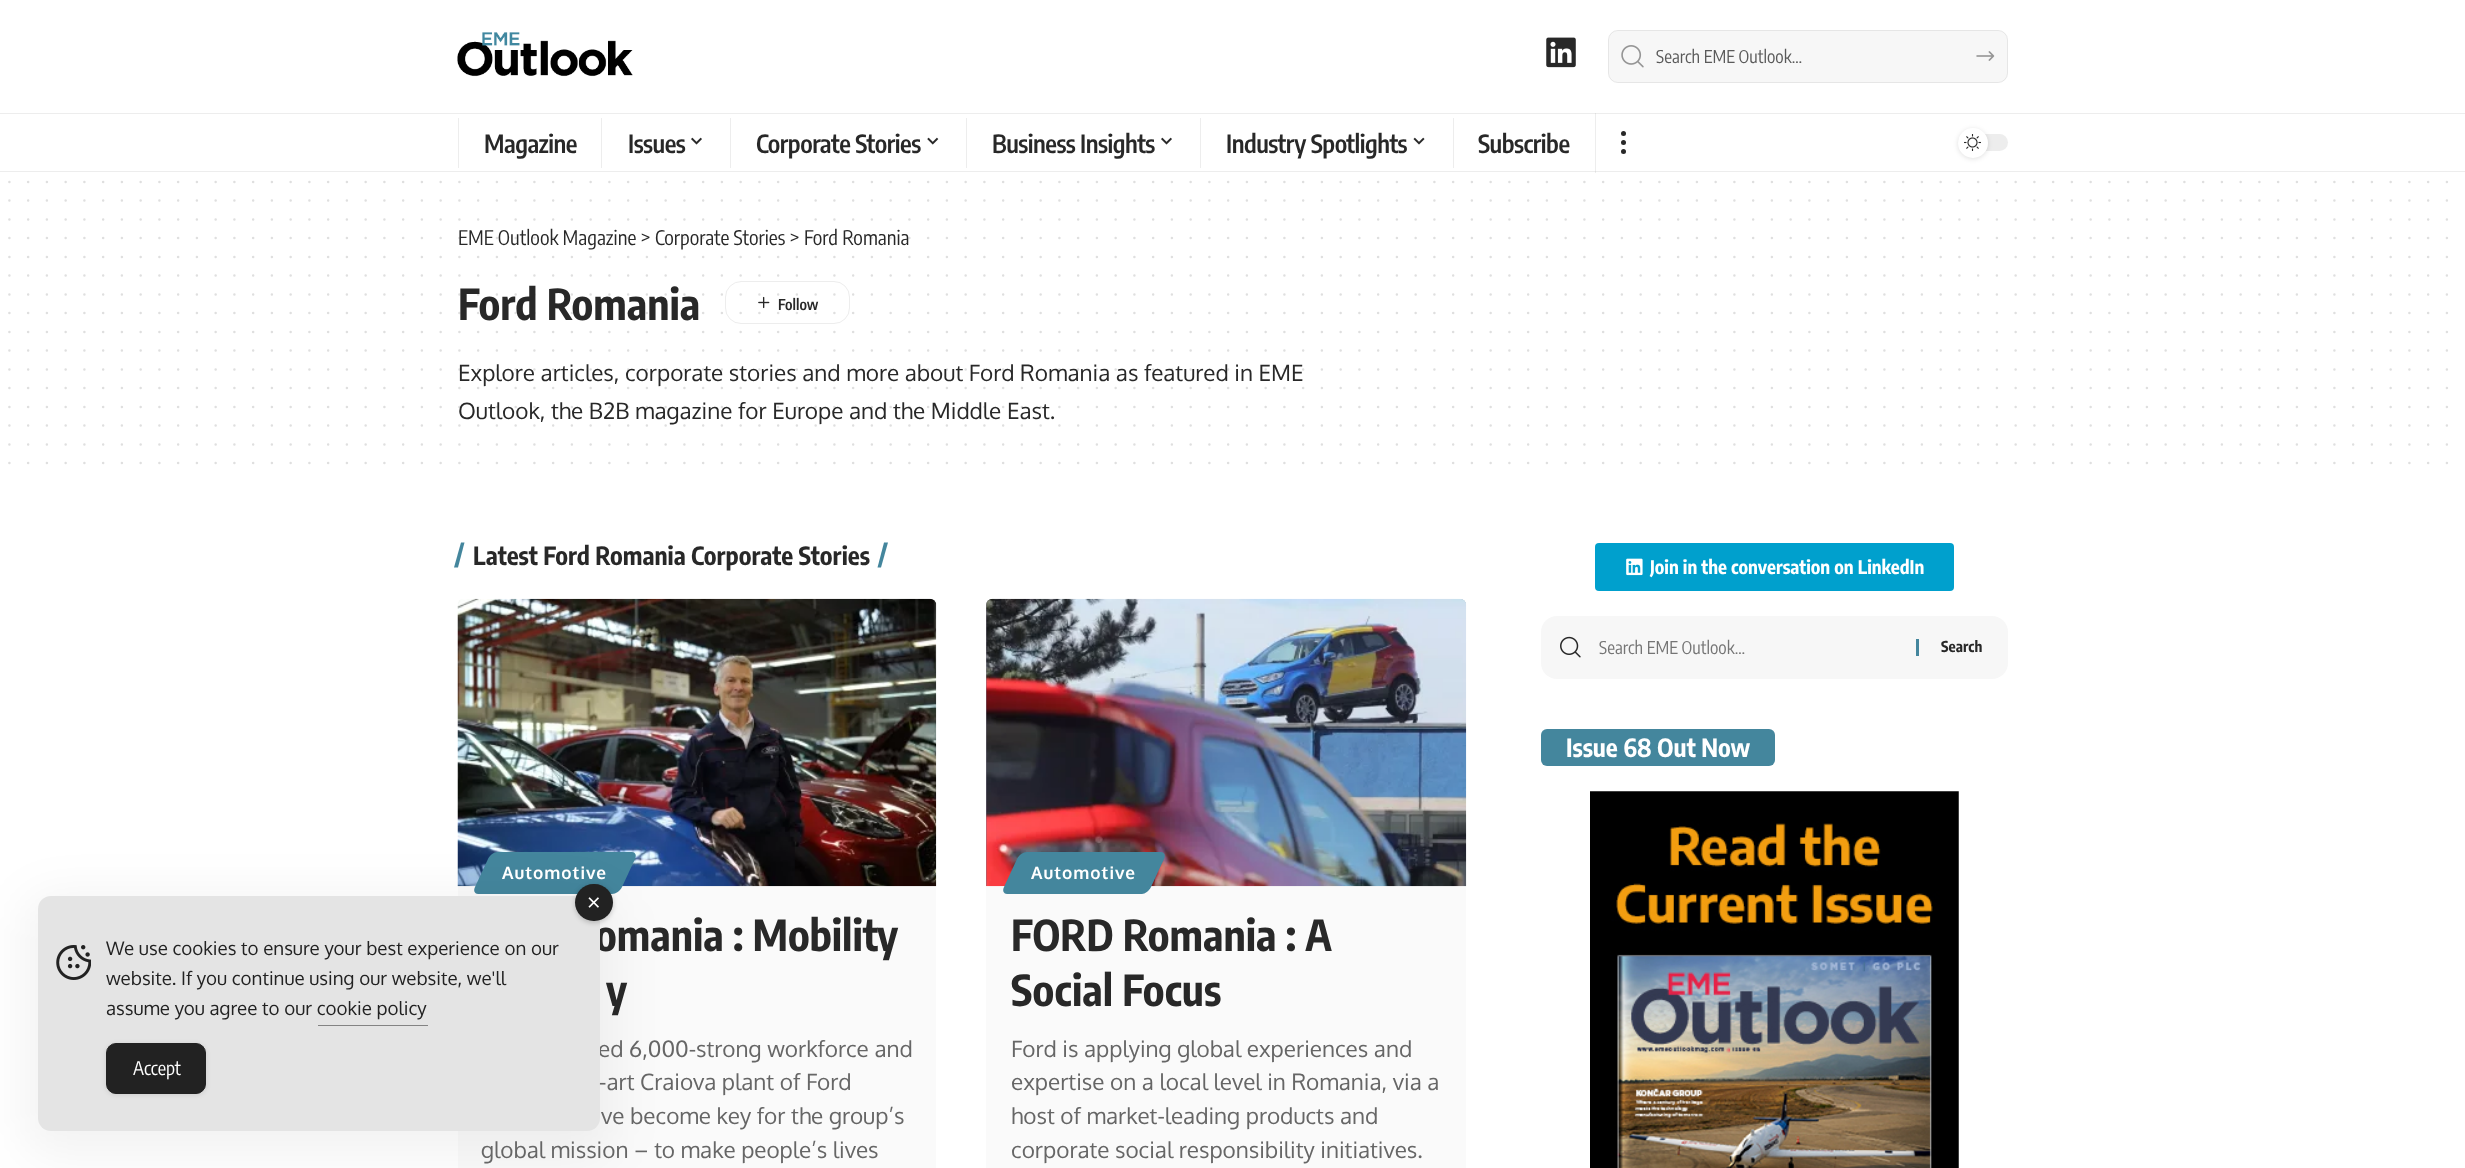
async function draw(canvas) {
	canvas.width = 2465;
	canvas.height = 1168;
	const c = canvas.getContext('2d');
	c.miterLimit = 4;
	c.fontKerning = 'normal';
	async function loadImage(src) {
		const img = new Image();
		img.src = src;
		await img.decode();
		return img;
	}

	c.fillStyle = '#fff';
	c.fillRect(0, 0, 2465, 1168);
	for (const [x, y, w, h, color] of [
		[0, 171, 2465, 1, '#ededed'],
		[1595, 113, 1, 60, '#ededed'],
		[1595, 171, 1, 1, '#dedede'],
	]) {
		c.fillStyle = color;
		c.fillRect(x, y, w, h);
	}
	c.fillStyle = '#fafafa';
	c.beginPath();
	c.roundRect(458, 599, 478, 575, 6);
	c.fill();
	c.drawImage(await loadImage('img12.png'), 457, 598, 480, 289);
	c.fillStyle = '#44869d';
	c.beginPath();
	c.moveTo(497, 852);
	c.lineTo(632, 852);
	c.bezierCurveTo(635, 852, 637, 855, 635, 859);
	c.lineTo(622, 887);
	c.bezierCurveTo(620, 891, 616, 894, 612, 894);
	c.lineTo(478, 894);
	c.bezierCurveTo(475, 894, 473, 891, 475, 887);
	c.lineTo(488, 859);
	c.bezierCurveTo(490, 855, 494, 852, 497, 852);
	c.closePath();
	c.fill();
	c.fillStyle = '#0000000d';
	c.filter = 'blur(25px)';
	c.beginPath();
	c.roundRect(25, 896, 588, 260, 25);
	c.fill();
	c.filter = 'none';
	c.font = 'bold 42.5px Encode Sans Condensed';
	c.fillStyle = '#282828';
	c.fillText('omania : Mobility', 595, 951);
	c.font = '22.5px Oxygen';
	c.fillStyle = '#666';
	c.fillText('ed 6,000-strong workforce and', 598, 1057);
	c.fillStyle = '#e4e4e4';
	c.beginPath();
	c.roundRect(38, 896, 562, 235, 13);
	c.fill();
	c.fillStyle = '#00000033';
	c.filter = 'blur(2.5px)';
	c.beginPath();
	c.roundRect(575, 885, 38, 38, 19);
	c.fill();
	c.filter = 'none';
	c.fillStyle = '#222';
	c.beginPath();
	c.roundRect(575, 884, 38, 37, 18.5);
	c.fill();
	c.drawImage(await loadImage('img1.png'), 588, 897, 11, 11);
	c.drawImage(await loadImage('img2.png'), 56, 945, 35, 35);
	c.font = '18.75px Oxygen';
	for (const [text, x, y] of [
		['We use cookies to ensure your best experience on our', 106, 955],
		['website. If you continue using our website, we\'ll', 106, 985],
		['assume you agree to our cookie policy', 106, 1015],
	]) {
		c.fillText(text, x, y);
	}
	c.fillStyle = '#838383';
	c.fillRect(318, 1025, 110, 1);
	c.fillStyle = '#0000001a';
	c.filter = 'blur(2.5px)';
	c.beginPath();
	c.roundRect(106, 1044, 100, 51, 10);
	c.fill();
	c.filter = 'none';
	c.fillStyle = '#222';
	c.beginPath();
	c.roundRect(106.5, 1043.5, 99, 50, 9.5);
	c.fill();
	c.strokeStyle = '#222';
	c.stroke();
	c.font = '18.75px Encode Sans Condensed';
	c.fillStyle = '#fff';
	c.fillText('Accept', 133, 1075);
	c.drawImage(await loadImage('img3.png'), 457, 32, 176, 45);
	c.drawImage(await loadImage('img4.png'), 1546, 37, 30, 31);
	c.fillStyle = '#f7f7f7';
	c.beginPath();
	c.roundRect(1608, 30, 400, 53, 10);
	c.fill();
	c.beginPath();
	c.roundRect(1608.5, 30.5, 399, 52, 9.5);
	c.strokeStyle = '#88888826';
	c.stroke();
	c.drawImage(await loadImage('img5.png'), 1621, 45, 23, 23);
	c.font = '17.5px Encode Sans Condensed';
	c.fillStyle = '#5a5a5a';
	c.fillText('Search EME Outlook…', 1656, 63);
	c.drawImage(await loadImage('img6.png'), 1976, 51, 19, 10);
	for (const [x, y, w, h, color] of [
		[0, 113, 2465, 1, '#ededed'],
		[1595, 113, 1, 1, '#dedede'],
		[458, 118, 1, 50, '#ededed'],
	]) {
		c.fillStyle = color;
		c.fillRect(x, y, w, h);
	}
	c.letterSpacing = '-0.5px';
	c.font = '600 25px Encode Sans Condensed';
	c.fillStyle = '#282828';
	c.fillText('Magazine', 484, 153);
	c.fillStyle = '#ededed';
	c.fillRect(601, 118, 1, 50);
	c.fillStyle = '#282828';
	c.fillText('Issues', 628, 153);
	c.drawImage(await loadImage('img7.png'), 691, 137, 11, 8);
	c.fillStyle = '#ededed';
	c.fillRect(730, 118, 1, 50);
	c.fillStyle = '#282828';
	c.fillText('Corporate Stories', 756, 153);
	c.drawImage(await loadImage('img8.png'), 927, 137, 12, 8);
	c.fillStyle = '#ededed';
	c.fillRect(966, 118, 1, 50);
	c.fillStyle = '#282828';
	c.fillText('Business Insights', 992, 153);
	c.drawImage(await loadImage('img7.png'), 1161, 137, 11, 8);
	c.fillStyle = '#ededed';
	c.fillRect(1200, 118, 1, 50);
	c.fillStyle = '#282828';
	c.fillText('Industry Spotlights', 1226, 153);
	c.drawImage(await loadImage('img9.png'), 1413, 137, 12, 8);
	c.fillStyle = '#ededed';
	c.fillRect(1453, 118, 1, 50);
	c.fillStyle = '#282828';
	c.fillText('Subscribe', 1478, 153);
	c.beginPath();
	c.arc(1623.5, 133.5, 2.5, 0, 2 * Math.PI);
	c.fill();
	c.beginPath();
	c.arc(1623.5, 142.5, 2.5, 0, 2 * Math.PI);
	c.fill();
	c.beginPath();
	c.arc(1623.5, 151.5, 2.5, 0, 2 * Math.PI);
	c.fill();
	c.fillStyle = '#ededed';
	c.beginPath();
	c.roundRect(1958, 134, 50, 17, 8.5);
	c.fill();
	c.fillStyle = '#0000001f';
	c.filter = 'blur(2.5px)';
	c.beginPath();
	c.roundRect(1958, 129, 30, 30, 15);
	c.fill();
	c.filter = 'none';
	c.fillStyle = '#fff';
	c.beginPath();
	c.arc(1973, 143, 15, 0, 2 * Math.PI);
	c.fill();
	c.drawImage(await loadImage('img10.png'), 1964, 134, 17, 17);
	c.beginPath();
	c.moveTo(9.4, 181.9);
	c.lineTo(2447.1, 181.9);
	c.strokeStyle = '#dfdfdf';
	c.lineWidth = 2.5;
	c.lineCap = 'round';
	c.setLineDash([0, 18.75]);
	c.stroke();
	c.beginPath();
	c.moveTo(9.4, 200.6);
	c.lineTo(2447.1, 200.6);
	c.stroke();
	c.beginPath();
	c.moveTo(9.4, 219.4);
	c.lineTo(2447.1, 219.4);
	c.stroke();
	c.beginPath();
	c.moveTo(9.4, 238.1);
	c.lineTo(2447.1, 238.1);
	c.stroke();
	c.beginPath();
	c.moveTo(9.4, 256.9);
	c.lineTo(2447.1, 256.9);
	c.stroke();
	c.beginPath();
	c.moveTo(9.4, 275.6);
	c.lineTo(2447.1, 275.6);
	c.stroke();
	c.beginPath();
	c.moveTo(9.4, 294.4);
	c.lineTo(2447.1, 294.4);
	c.stroke();
	c.beginPath();
	c.moveTo(9.4, 313.1);
	c.lineTo(2447.1, 313.1);
	c.stroke();
	c.beginPath();
	c.moveTo(9.4, 331.9);
	c.lineTo(2447.1, 331.9);
	c.stroke();
	c.beginPath();
	c.moveTo(9.4, 350.6);
	c.lineTo(2447.1, 350.6);
	c.stroke();
	c.beginPath();
	c.moveTo(9.4, 369.4);
	c.lineTo(2447.1, 369.4);
	c.stroke();
	c.beginPath();
	c.moveTo(9.4, 388.1);
	c.lineTo(2447.1, 388.1);
	c.stroke();
	c.beginPath();
	c.moveTo(9.4, 406.9);
	c.lineTo(2447.1, 406.9);
	c.stroke();
	c.beginPath();
	c.moveTo(9.4, 425.6);
	c.lineTo(2447.1, 425.6);
	c.stroke();
	c.beginPath();
	c.moveTo(9.4, 444.4);
	c.lineTo(2447.1, 444.4);
	c.stroke();
	c.beginPath();
	c.moveTo(9.4, 463.1);
	c.lineTo(2447.1, 463.1);
	c.stroke();
	c.letterSpacing = '0px';
	c.font = '20px Encode Sans Condensed';
	c.fillStyle = '#282828';
	c.fillText('EME Outlook Magazine > Corporate Stories > Ford Romania', 458, 245);
	c.font = 'bold 42.5px Encode Sans Condensed';
	c.fillText('Ford Romania', 458, 320);
	c.beginPath();
	c.roundRect(725.5, 281.5, 124, 42, 15.5);
	c.strokeStyle = '#ededed';
	c.lineWidth = 1;
	c.setLineDash([]);
	c.stroke();
	c.drawImage(await loadImage('img11.png'), 758, 296, 12, 13);
	c.font = '600 15px Encode Sans Condensed';
	c.fillText('Follow', 778, 310);
	c.font = '22.5px Oxygen';
	c.fillText('Explore articles, corporate stories and more about Ford Romania as featured in EME', 458, 381);
	c.fillText('Outlook, the B2B magazine for Europe and the Middle East.', 458, 419);
	c.fillStyle = '#44869d';
	c.beginPath();
	c.moveTo(884, 542.5);
	c.lineTo(888, 542.5);
	c.lineTo(881, 567.5);
	c.lineTo(877.5, 567.5);
	c.closePath();
	c.fill();
	c.beginPath();
	c.moveTo(461, 542.5);
	c.lineTo(464.5, 542.5);
	c.lineTo(458, 567.5);
	c.lineTo(454, 567.5);
	c.closePath();
	c.fill();
	c.font = 'bold 25px Encode Sans Condensed';
	c.fillStyle = '#282828';
	c.fillText('Latest Ford Romania Corporate Stories', 473, 565);
	c.letterSpacing = '1px';
	c.font = 'bold 17.25px Oxygen';
	c.fillStyle = '#fff';
	c.fillText('Automotive', 502, 879);
	c.letterSpacing = '0px';
	c.font = 'bold 42.5px Encode Sans Condensed';
	c.fillStyle = '#282828';
	c.fillText('y', 606, 1006);
	c.font = '22.5px Oxygen';
	c.fillStyle = '#666';
	for (const [text, x, y] of [
		['-art Craiova plant of Ford', 599, 1090],
		['ve become key for the group’s', 601, 1124],
		['global mission – to make people’s lives', 481, 1158],
	]) {
		c.fillText(text, x, y);
	}
	c.fillStyle = '#fafafa';
	c.beginPath();
	c.roundRect(986, 599, 480, 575, 6);
	c.fill();
	c.fillStyle = '#797284';
	c.beginPath();
	c.roundRect(986, 599, 480, 287, [6, 6, 0, 0]);
	c.fill();
	c.drawImage(await loadImage('img13.png'), 986, 598, 481, 289);
	c.fillStyle = '#44869d';
	c.beginPath();
	c.moveTo(1027, 852);
	c.lineTo(1161, 852);
	c.bezierCurveTo(1164, 852, 1166, 855, 1164, 859);
	c.lineTo(1151, 887);
	c.bezierCurveTo(1149, 891, 1145, 894, 1142, 894);
	c.lineTo(1007, 894);
	c.bezierCurveTo(1004, 894, 1002, 891, 1004, 887);
	c.lineTo(1017, 859);
	c.bezierCurveTo(1019, 855, 1023, 852, 1027, 852);
	c.closePath();
	c.fill();
	c.letterSpacing = '1px';
	c.font = 'bold 17.25px Oxygen';
	c.fillStyle = '#fff';
	c.fillText('Automotive', 1031, 879);
	c.letterSpacing = '0px';
	c.font = 'bold 42.5px Encode Sans Condensed';
	c.fillStyle = '#282828';
	c.fillText('FORD Romania : A', 1011, 951);
	c.fillText('Social Focus', 1011, 1006);
	c.font = '22.5px Oxygen';
	c.fillStyle = '#666';
	for (const [text, x, y] of [
		['Ford is applying global experiences and', 1011, 1057],
		['expertise on a local level in Romania, via a', 1011, 1090],
		['host of market-leading products and', 1011, 1124],
		['corporate social responsibility initiatives.', 1011, 1158],
	]) {
		c.fillText(text, x, y);
	}
	c.fillStyle = '#00a0cd';
	c.beginPath();
	c.roundRect(1595, 543, 359, 48, 4);
	c.fill();
	c.drawImage(await loadImage('img14.png'), 1626, 558, 17, 18);
	c.font = 'bold 18.75px Encode Sans Condensed';
	c.fillStyle = '#fff';
	c.fillText('Join in the conversation on LinkedIn', 1650, 574);
	c.fillStyle = '#f7f7f7';
	c.beginPath();
	c.roundRect(1541, 616, 467, 63, 16);
	c.fill();
	c.drawImage(await loadImage('img15.png'), 1560, 636, 21, 22);
	c.font = '17.5px Encode Sans Condensed';
	c.fillStyle = '#757575';
	c.fillText('Search EME Outlook…', 1599, 654);
	c.fillStyle = '#44869d';
	c.fillRect(1916, 639, 3, 17);
	c.font = 'bold 15px Encode Sans Condensed';
	c.fillStyle = '#282828';
	c.fillText('Search', 1941, 652);
	c.fillStyle = '#44869d';
	c.beginPath();
	c.roundRect(1541, 729, 234, 37, 6);
	c.fill();
	c.font = 'bold 25px Encode Sans Condensed';
	c.fillStyle = '#fff';
	c.fillText('Issue 68 Out Now', 1566, 757);
	c.drawImage(await loadImage('img16.png'), 1590, 791, 369, 377);
}

draw(document.querySelector('canvas'));
